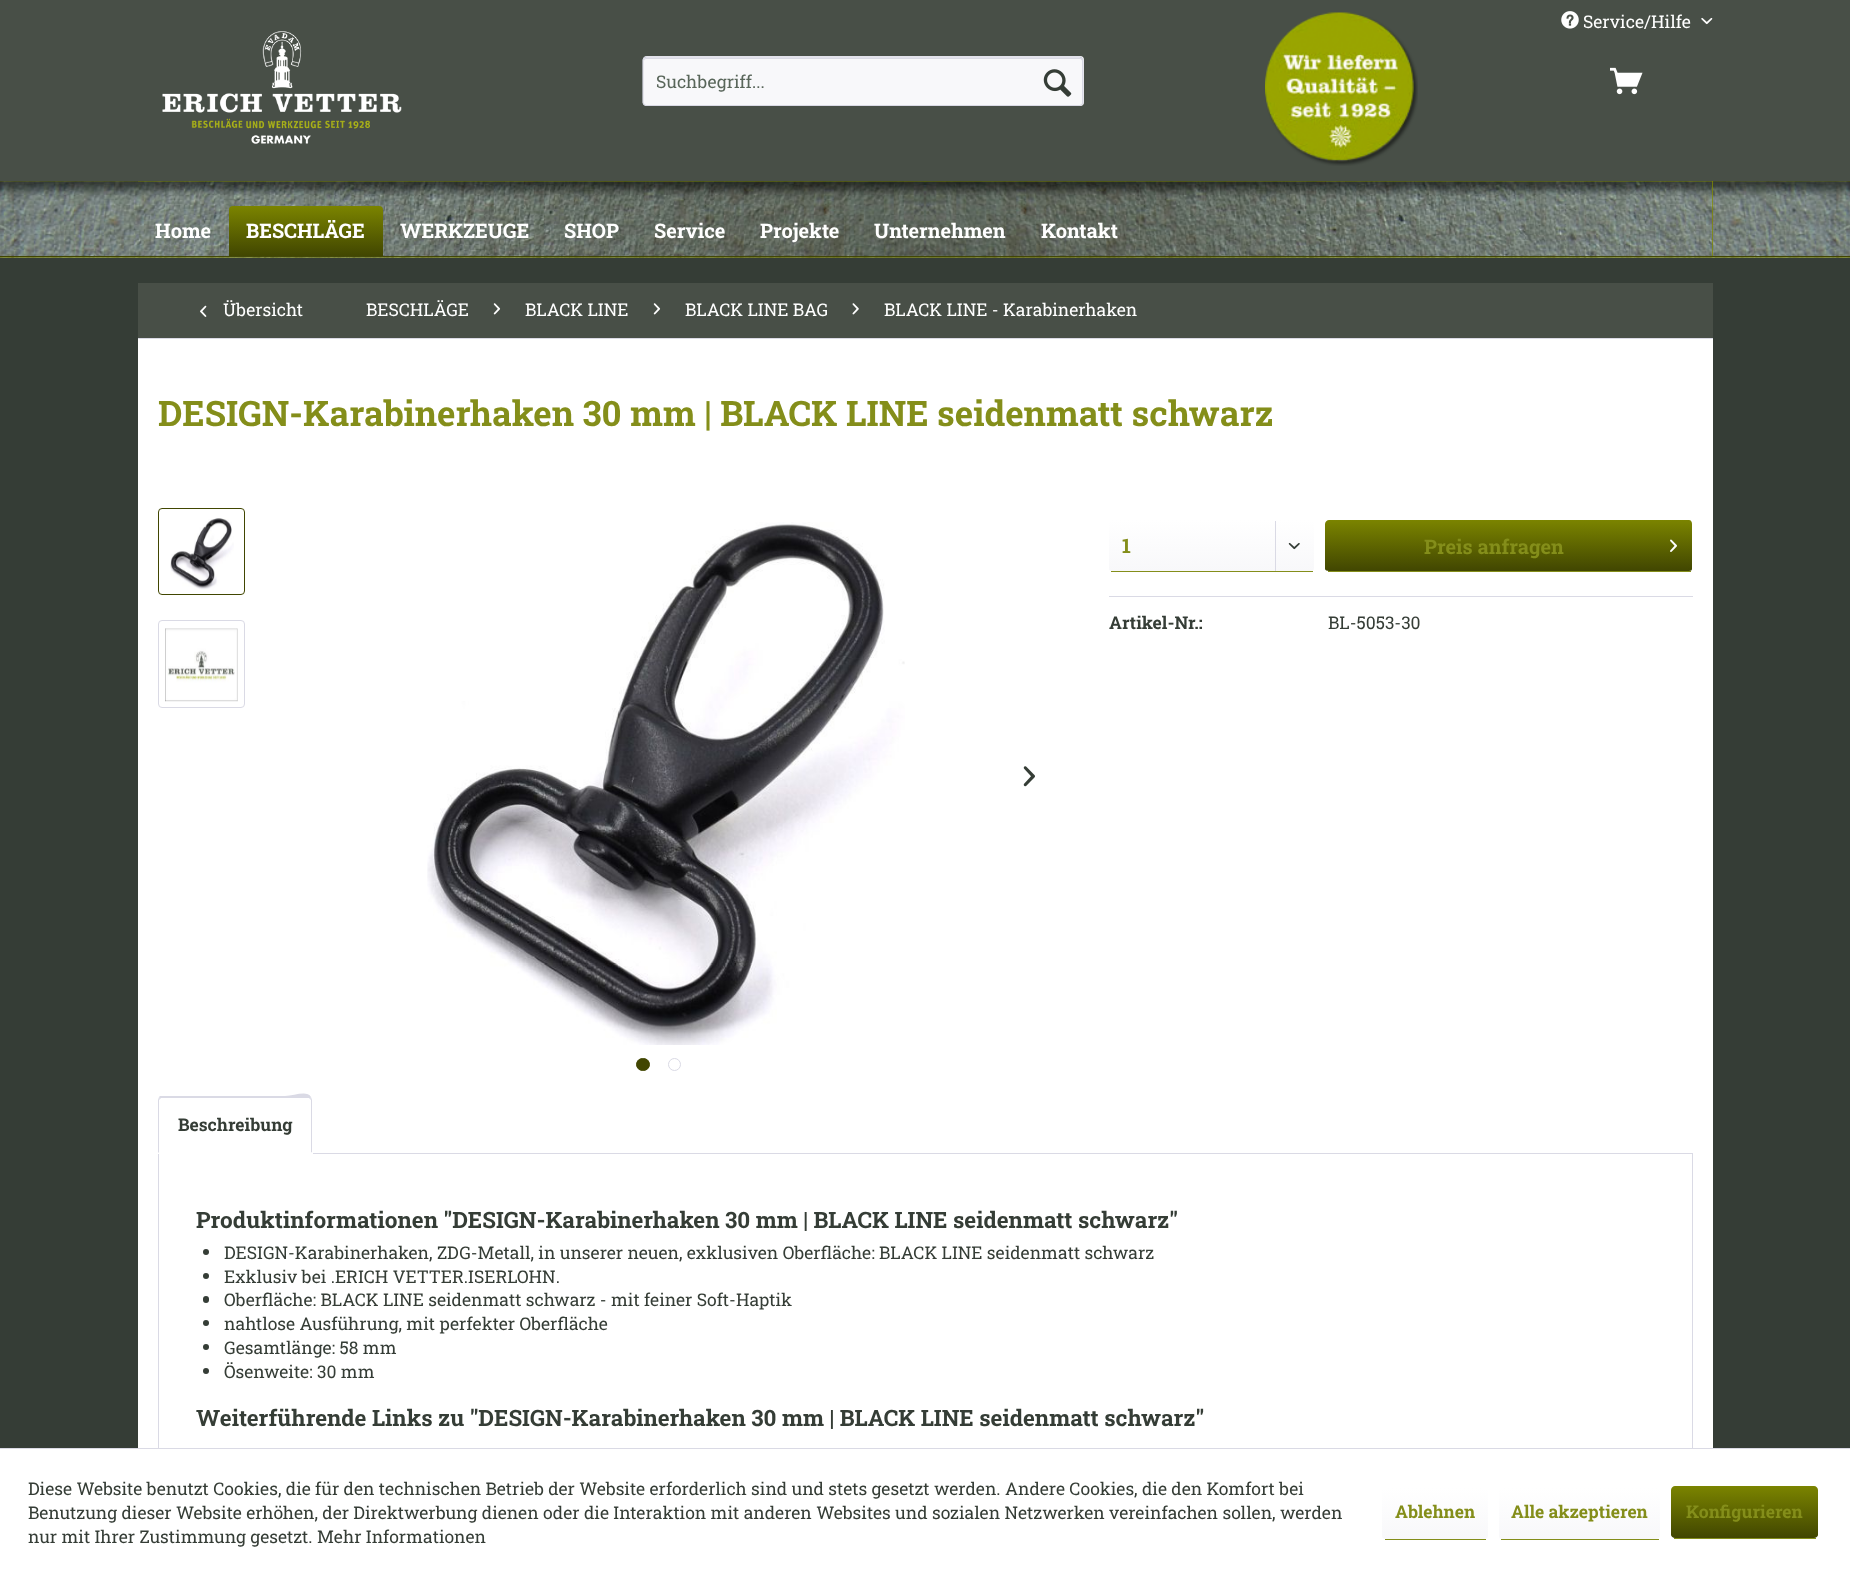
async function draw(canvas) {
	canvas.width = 1850;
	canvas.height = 1574;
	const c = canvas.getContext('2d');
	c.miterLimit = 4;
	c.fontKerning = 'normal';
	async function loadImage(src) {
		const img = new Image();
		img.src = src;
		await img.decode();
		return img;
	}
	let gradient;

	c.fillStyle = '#353d36';
	c.fillRect(0, 0, 1850, 1574);
	c.fillStyle = '#484f47';
	c.fillRect(0, 0, 1850, 181);
	c.drawImage(await loadImage('img1.png'), 1561, 11, 18, 18);
	c.font = '17.5px Roboto Slab';
	c.fillStyle = '#fff';
	c.fillText('Service/Hilfe', 1583, 28);
	c.drawImage(await loadImage('img2.png'), 1701, 17, 12, 8);
	c.drawImage(await loadImage('img3.png'), 162, 31, 240, 113);
	c.drawImage(await loadImage('img4.png'), 1265, 12, 153, 154);
	c.fillStyle = '#f8f8fa';
	c.beginPath();
	c.roundRect(643, 56, 441, 50, 4);
	c.fill();
	c.fillStyle = '#dadae5';
	c.beginPath();
	c.moveTo(646, 59);
	c.lineTo(1080, 59);
	c.bezierCurveTo(1081, 59, 1082, 60, 1082, 61);
	c.lineTo(1082, 105);
	c.bezierCurveTo(1083, 104, 1083, 103, 1083, 102);
	c.lineTo(1083, 60);
	c.bezierCurveTo(1083, 59, 1082, 58, 1080, 58);
	c.lineTo(646, 58);
	c.bezierCurveTo(645, 58, 644, 59, 644, 60);
	c.lineTo(644, 61);
	c.bezierCurveTo(644, 60, 645, 59, 646, 59);
	c.closePath();
	c.fill();
	c.beginPath();
	c.moveTo(644, 58);
	c.lineTo(646, 57);
	c.lineTo(1080, 57);
	c.lineTo(1082, 58);
	c.strokeStyle = '#cbcbdb';
	c.lineWidth = 1.2;
	c.stroke();
	c.beginPath();
	c.moveTo(1082, 58);
	c.lineTo(1083, 60);
	c.lineTo(1083, 102.5);
	c.lineTo(1082, 104.5);
	c.lineTo(1080, 105.5);
	c.lineTo(646, 105.5);
	c.lineTo(644, 104.5);
	c.lineTo(643, 102.5);
	c.lineTo(643, 60);
	c.lineTo(644, 58);
	c.strokeStyle = '#dadae5';
	c.stroke();
	c.fillStyle = '#59665a';
	c.fillText('Suchbegriff...', 656, 88);
	c.drawImage(await loadImage('img5.png'), 1043, 69, 29, 28);
	c.drawImage(await loadImage('img6.png'), 1610, 67, 33, 28);
	c.fillStyle = '#828b00';
	c.fillRect(0, 181, 1850, 77);
	c.drawImage(await loadImage('img7.png'), 0, 181, 1850, 77);
	c.fillStyle = '#414601';
	c.fillRect(0, 256, 1850, 1);
	c.fillStyle = '#828b00';
	c.fillRect(138, 181, 1575, 75);
	c.drawImage(await loadImage('img8.png'), 137, 181, 1576, 76);
	c.font = 'bold 20px Roboto Slab';
	c.fillStyle = '#fff';
	c.fillText('Home', 155, 238);
	gradient = c.createLinearGradient(306, 206, 306, 256);
	gradient.addColorStop(0, '#7b8400');
	gradient.addColorStop(1, '#414601');
	c.fillStyle = gradient;
	c.beginPath();
	c.roundRect(229, 206, 154, 50, [4, 4, 0, 0]);
	c.fill();
	c.fillStyle = '#fff';
	for (const [text, x, y] of [
		['BESCHLÄGE', 246, 238],
		['WERKZEUGE', 400, 238],
		['SHOP', 564, 238],
		['Service', 654, 238],
		['Projekte', 760, 238],
		['Unternehmen', 874, 238],
		['Kontakt', 1041, 238],
	]) {
		c.fillText(text, x, y);
	}
	c.fillStyle = '#484f47';
	c.fillRect(138, 283, 1575, 55);
	c.fillStyle = '#dadae5';
	c.fillRect(138, 338, 1575, 1);
	c.drawImage(await loadImage('img9.png'), 200, 305, 7, 12);
	c.font = '17.5px Roboto Slab';
	c.fillStyle = '#fff';
	c.fillText('Übersicht', 223, 316);
	c.fillText('BESCHLÄGE', 366, 316);
	c.drawImage(await loadImage('img10.png'), 493, 303, 8, 12);
	c.fillText('BLACK LINE', 525, 316);
	c.drawImage(await loadImage('img10.png'), 653, 303, 8, 12);
	c.fillText('BLACK LINE BAG', 685, 316);
	c.drawImage(await loadImage('img11.png'), 852, 303, 7, 12);
	c.fillText('BLACK LINE - Karabinerhaken', 884, 316);
	c.fillRect(138, 339, 1575, 1109);
	c.font = 'bold 35px Roboto Slab';
	c.fillStyle = '#848e1a';
	c.fillText('DESIGN-Karabinerhaken 30 mm | BLACK LINE seidenmatt schwarz', 158, 426);
	c.beginPath();
	c.roundRect(158.5, 508.5, 86, 86, 3.5);
	c.strokeStyle = '#414601';
	c.lineWidth = 1;
	c.stroke();
	c.drawImage(await loadImage('img12.png'), 170, 518, 64, 72);
	c.beginPath();
	c.roundRect(158.5, 620.5, 86, 87, 3.5);
	c.strokeStyle = '#dadae5';
	c.stroke();
	c.drawImage(await loadImage('img13.png'), 165, 628, 73, 74);
	c.drawImage(await loadImage('img14.png'), 427, 522, 478, 523);
	c.drawImage(await loadImage('img15.png'), 1023, 766, 12, 21);
	c.fillStyle = '#414601';
	c.beginPath();
	c.roundRect(636.5, 1058.5, 13, 12, 6);
	c.fill();
	c.strokeStyle = '#414601';
	c.stroke();
	c.beginPath();
	c.arc(674.5, 1064.5, 6, 0, 2 * Math.PI);
	c.strokeStyle = '#dadae5';
	c.stroke();
	gradient = c.createLinearGradient(1211, 520, 1211, 571);
	gradient.addColorStop(0, '#fff');
	gradient.addColorStop(1, '#f8f8fa');
	c.fillStyle = gradient;
	c.beginPath();
	c.moveTo(1112, 520);
	c.lineTo(1310, 520);
	c.bezierCurveTo(1312, 520, 1314, 522, 1314, 524);
	c.lineTo(1314, 569);
	c.bezierCurveTo(1314, 570, 1312, 571, 1310, 571);
	c.lineTo(1112, 571);
	c.bezierCurveTo(1110, 571, 1109, 570, 1109, 569);
	c.lineTo(1109, 524);
	c.bezierCurveTo(1109, 522, 1110, 520, 1112, 520);
	c.closePath();
	c.fill();
	c.fillStyle = '#848e1a';
	c.fillRect(1111, 571, 202, 1);
	c.font = 'bold 20px Roboto Slab';
	c.fillText('1', 1122, 553);
	c.fillStyle = '#dadae5';
	c.fillRect(1275, 521, 1, 50);
	c.drawImage(await loadImage('img16.png'), 1288, 542, 12, 8);
	gradient = c.createLinearGradient(1509, 520, 1509, 571);
	gradient.addColorStop(0, '#7b8400');
	gradient.addColorStop(1, '#414601');
	c.fillStyle = gradient;
	c.beginPath();
	c.moveTo(1329, 520);
	c.lineTo(1689, 520);
	c.bezierCurveTo(1691, 520, 1692, 522, 1692, 524);
	c.lineTo(1692, 569);
	c.bezierCurveTo(1692, 570, 1691, 571, 1689, 571);
	c.lineTo(1329, 571);
	c.bezierCurveTo(1327, 571, 1325, 570, 1325, 569);
	c.lineTo(1325, 524);
	c.bezierCurveTo(1325, 522, 1327, 520, 1329, 520);
	c.closePath();
	c.fill();
	c.fillStyle = '#848e1a';
	c.fillRect(1328, 571, 363, 1);
	c.fillText('Preis anfragen', 1424, 554);
	c.drawImage(await loadImage('img17.png'), 1670, 539, 7, 13);
	c.fillStyle = '#dadae5';
	c.fillRect(1109, 596, 584, 1);
	c.font = 'bold 17.5px Roboto Slab';
	c.fillStyle = '#353d36';
	c.fillText('Artikel-Nr.:', 1109, 629);
	c.font = '17.5px Roboto Slab';
	c.fillText('BL-5053-30', 1328, 629);
	c.strokeRect(158.5, 1153.5, 1534, 347);
	c.fillStyle = '#fff';
	c.beginPath();
	c.roundRect(158, 1096, 155, 58, [4, 4, 0, 0]);
	c.fill();
	c.fillStyle = '#dadae5';
	c.beginPath();
	c.moveTo(161, 1098);
	c.lineTo(160, 1099);
	c.lineTo(159, 1097);
	c.lineTo(160, 1096);
	c.lineTo(285, 1096);
	c.bezierCurveTo(294, 1096, 307, 1090, 311, 1097);
	c.lineTo(310, 1099);
	c.lineTo(309, 1098);
	c.closePath();
	c.fill();
	c.beginPath();
	c.moveTo(311, 1097);
	c.lineTo(312, 1100);
	c.lineTo(312, 1153);
	c.lineTo(311, 1152);
	c.lineTo(311, 1100);
	c.lineTo(310, 1099);
	c.closePath();
	c.fill();
	c.fillStyle = '#fff';
	c.beginPath();
	c.moveTo(158, 1154);
	c.lineTo(159, 1152);
	c.lineTo(311, 1152);
	c.lineTo(312, 1153);
	c.lineTo(312, 1154);
	c.closePath();
	c.fill();
	c.fillStyle = '#dadae5';
	c.beginPath();
	c.moveTo(158, 1153);
	c.lineTo(158, 1100);
	c.lineTo(159, 1097);
	c.lineTo(160, 1099);
	c.lineTo(159, 1100);
	c.lineTo(159, 1152);
	c.closePath();
	c.fill();
	c.font = 'bold 17.5px Roboto Slab';
	c.fillStyle = '#353d36';
	c.fillText('Beschreibung', 178, 1131);
	c.font = 'bold 22.5px Roboto Slab';
	c.fillText('Produktinformationen "DESIGN-Karabinerhaken 30 mm | BLACK LINE seidenmatt schwarz"', 196, 1228);
	c.beginPath();
	c.arc(206, 1252, 3, 0, 2 * Math.PI);
	c.fill();
	c.font = '17.5px Roboto Slab';
	c.fillText('DESIGN-Karabinerhaken, ZDG-Metall, in unserer neuen, exklusiven Oberfläche: BLACK LINE seidenmatt schwarz', 224, 1259);
	c.beginPath();
	c.arc(206, 1276, 3, 0, 2 * Math.PI);
	c.fill();
	c.fillText('Exklusiv bei .ERICH VETTER.ISERLOHN.', 224, 1283);
	c.beginPath();
	c.roundRect(203, 1296, 6, 7, 3);
	c.fill();
	c.fillText('Oberfläche: BLACK LINE seidenmatt schwarz - mit feiner Soft-Haptik', 224, 1306);
	c.beginPath();
	c.arc(206, 1323, 3, 0, 2 * Math.PI);
	c.fill();
	c.fillText('nahtlose Ausführung, mit perfekter Oberfläche', 224, 1330);
	c.beginPath();
	c.arc(206, 1347, 3, 0, 2 * Math.PI);
	c.fill();
	c.fillText('Gesamtlänge: 58 mm', 224, 1354);
	c.beginPath();
	c.arc(206, 1371, 3, 0, 2 * Math.PI);
	c.fill();
	c.fillText('Ösenweite: 30 mm', 224, 1378);
	c.font = 'bold 22.5px Roboto Slab';
	c.fillText('Weiterführende Links zu "DESIGN-Karabinerhaken 30 mm | BLACK LINE seidenmatt schwarz"', 196, 1426);
	c.fillStyle = '#fff';
	c.fillRect(0, 1449, 1850, 125);
	c.fillStyle = '#dadae5';
	c.fillRect(0, 1448, 1850, 1);
	c.font = '17.5px Roboto Slab';
	c.fillStyle = '#353d36';
	for (const [text, x, y] of [
		['Diese Website benutzt Cookies, die für den technischen Betrieb der Website erforderlich sind und stets gesetzt werden. Andere Cookies, die den Komfort bei', 28, 1495],
		['Benutzung dieser Website erhöhen, der Direktwerbung dienen oder die Interaktion mit anderen Websites und sozialen Netzwerken vereinfachen sollen, werden', 28, 1519],
		['nur mit Ihrer Zustimmung gesetzt. Mehr Informationen', 28, 1543],
	]) {
		c.fillText(text, x, y);
	}
	gradient = c.createLinearGradient(1435, 1488, 1435, 1539);
	gradient.addColorStop(0, '#fff');
	gradient.addColorStop(1, '#f8f8fa');
	c.fillStyle = gradient;
	c.beginPath();
	c.moveTo(1386, 1488);
	c.lineTo(1484, 1488);
	c.bezierCurveTo(1486, 1488, 1488, 1489, 1488, 1491);
	c.lineTo(1488, 1536);
	c.bezierCurveTo(1488, 1538, 1486, 1539, 1484, 1539);
	c.lineTo(1386, 1539);
	c.bezierCurveTo(1384, 1539, 1382, 1538, 1382, 1536);
	c.lineTo(1382, 1491);
	c.bezierCurveTo(1382, 1489, 1384, 1488, 1386, 1488);
	c.closePath();
	c.fill();
	c.fillStyle = '#848e1a';
	c.fillRect(1385, 1539, 101, 1);
	c.font = 'bold 17.5px Roboto Slab';
	c.fillText('Ablehnen', 1395, 1518);
	gradient = c.createLinearGradient(1579, 1488, 1579, 1539);
	gradient.addColorStop(0, '#fff');
	gradient.addColorStop(1, '#f8f8fa');
	c.fillStyle = gradient;
	c.beginPath();
	c.moveTo(1502, 1488);
	c.lineTo(1656, 1488);
	c.bezierCurveTo(1658, 1488, 1660, 1489, 1660, 1491);
	c.lineTo(1660, 1536);
	c.bezierCurveTo(1660, 1538, 1658, 1539, 1656, 1539);
	c.lineTo(1502, 1539);
	c.bezierCurveTo(1500, 1539, 1499, 1538, 1499, 1536);
	c.lineTo(1499, 1491);
	c.bezierCurveTo(1499, 1489, 1500, 1488, 1502, 1488);
	c.closePath();
	c.fill();
	c.fillStyle = '#848e1a';
	c.fillRect(1501, 1539, 158, 1);
	c.fillText('Alle akzeptieren', 1511, 1518);
	gradient = c.createLinearGradient(1744, 1486, 1744, 1538);
	gradient.addColorStop(0, '#7b8400');
	gradient.addColorStop(1, '#414601');
	c.fillStyle = gradient;
	c.beginPath();
	c.moveTo(1675, 1486);
	c.lineTo(1814, 1486);
	c.bezierCurveTo(1816, 1486, 1818, 1488, 1818, 1490);
	c.lineTo(1818, 1535);
	c.bezierCurveTo(1818, 1536, 1816, 1538, 1814, 1538);
	c.lineTo(1675, 1538);
	c.bezierCurveTo(1673, 1538, 1671, 1536, 1671, 1535);
	c.lineTo(1671, 1490);
	c.bezierCurveTo(1671, 1488, 1673, 1486, 1675, 1486);
	c.closePath();
	c.fill();
	c.fillStyle = '#848e1a';
	c.fillRect(1674, 1538, 142, 1);
	c.fillText('Konfigurieren', 1686, 1518);
}

draw(document.querySelector('canvas'));
